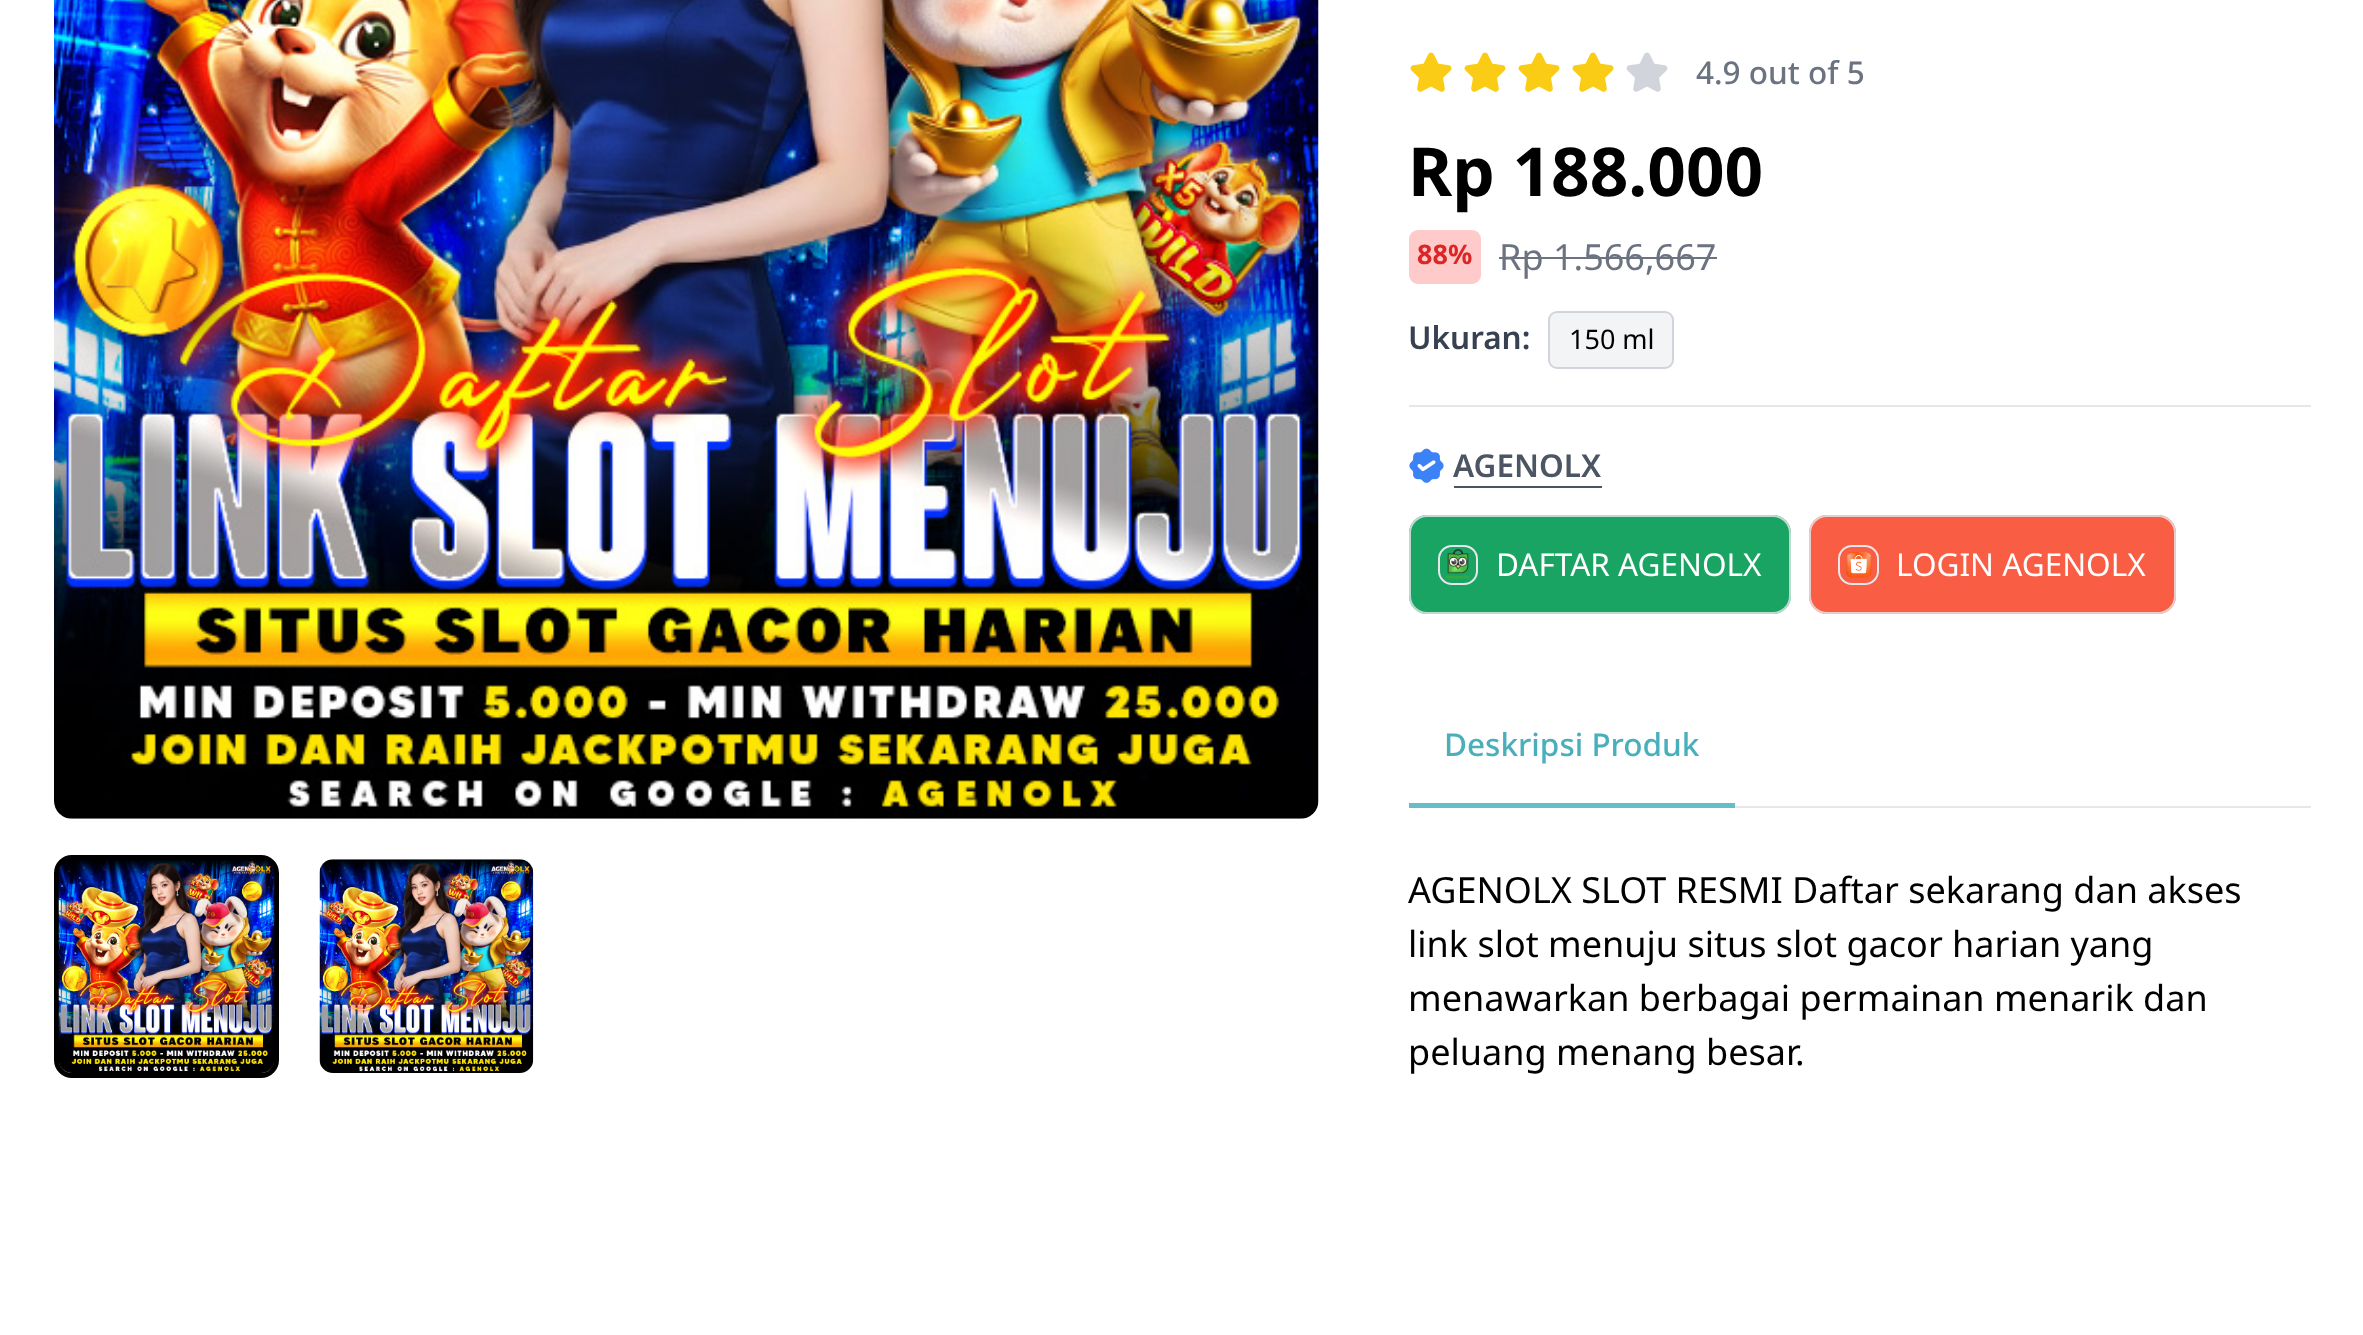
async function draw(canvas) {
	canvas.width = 2363;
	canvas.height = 1335;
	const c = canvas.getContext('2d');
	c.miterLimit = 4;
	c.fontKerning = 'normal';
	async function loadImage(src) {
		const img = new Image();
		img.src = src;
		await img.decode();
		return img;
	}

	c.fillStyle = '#fff';
	c.fillRect(0, 0, 2363, 1335);
	c.drawImage(await loadImage('img1.png'), 54, 0, 1265, 819);
	c.beginPath();
	c.roundRect(56.5, 857.5, 220, 218, 15.5);
	c.strokeStyle = '#000';
	c.lineWidth = 5;
	c.stroke();
	c.drawImage(await loadImage('img2.png'), 58, 860, 217, 213);
	c.drawImage(await loadImage('img3.png'), 319, 859, 215, 214);
	c.drawImage(await loadImage('img4.png'), 1410, 52, 42, 40);
	c.drawImage(await loadImage('img4.png'), 1464, 52, 42, 40);
	c.drawImage(await loadImage('img4.png'), 1518, 52, 42, 40);
	c.drawImage(await loadImage('img4.png'), 1572, 52, 42, 40);
	c.drawImage(await loadImage('img5.png'), 1626, 52, 42, 40);
	c.font = '500 31.5px Noto Sans';
	c.fillStyle = '#6b7280';
	c.fillText('4.9 out of 5', 1696, 84);
	c.font = 'bold 67.5px Noto Sans';
	c.fillStyle = '#000';
	c.fillText('Rp 188.000', 1408, 196);
	c.fillStyle = '#fecaca';
	c.beginPath();
	c.roundRect(1409, 230, 72, 54, 9);
	c.fill();
	c.font = 'bold 27px Noto Sans';
	c.fillStyle = '#dc2626';
	c.fillText('88%', 1417, 264);
	c.font = '36px Noto Sans';
	c.fillStyle = '#6b7280';
	c.fillText('Rp 1.566,667', 1499, 270);
	c.fillRect(1499, 257, 218, 2);
	c.font = '600 31.5px Noto Sans';
	c.fillStyle = '#374151';
	c.fillText('Ukuran:', 1408, 349);
	c.fillStyle = '#f3f4f6';
	c.beginPath();
	c.roundRect(1549, 312, 124, 56, 8);
	c.fill();
	c.strokeStyle = '#d1d5db';
	c.lineWidth = 2;
	c.stroke();
	c.font = '27px Noto Sans';
	c.fillStyle = '#000';
	c.fillText('150 ml', 1569, 349);
	c.fillStyle = '#e5e7eb';
	c.fillRect(1409, 405, 902, 2);
	c.drawImage(await loadImage('img6.png'), 1409, 448, 35, 35);
	c.font = '600 31.5px Noto Sans';
	c.fillStyle = '#4b5563';
	c.fillText('AGENOLX', 1453, 477);
	c.fillRect(1454, 486, 148, 2);
	c.fillStyle = '#1aa464';
	c.beginPath();
	c.roundRect(1409, 515, 382, 99, 18);
	c.fill();
	c.beginPath();
	c.roundRect(1410, 516, 380, 97, 17);
	c.strokeStyle = '#e5e7ebcc';
	c.stroke();
	c.beginPath();
	c.roundRect(1439, 546, 38, 38, 13);
	c.strokeStyle = '#e5e7eb';
	c.stroke();
	c.drawImage(await loadImage('img7.png'), 1445, 549, 26, 31);
	c.font = '31.5px Noto Sans';
	c.fillStyle = '#fff';
	c.fillText('DAFTAR AGENOLX', 1496, 576);
	c.fillStyle = '#f95d44';
	c.beginPath();
	c.roundRect(1809, 515, 367, 99, 18);
	c.fill();
	c.beginPath();
	c.roundRect(1810, 516, 365, 97, 17);
	c.strokeStyle = '#e5e7ebcc';
	c.stroke();
	c.beginPath();
	c.roundRect(1839, 546, 39, 38, 13);
	c.strokeStyle = '#e5e7eb';
	c.stroke();
	c.drawImage(await loadImage('img8.png'), 1846, 552, 26, 26);
	c.fillStyle = '#fff';
	c.fillText('LOGIN AGENOLX', 1896, 576);
	c.fillStyle = '#e5e7eb';
	c.fillRect(1735, 806, 576, 2);
	c.fillStyle = '#66bdc7';
	c.fillRect(1409, 803, 326, 5);
	c.font = '500 31.5px Noto Sans';
	c.fillStyle = '#49afba';
	c.fillText('Deskripsi Produk', 1444, 756);
	c.font = '36px Noto Sans';
	c.fillStyle = '#000';
	for (const [text, x, y] of [
		['AGENOLX SLOT RESMI Daftar sekarang dan akses', 1408, 903],
		['link slot menuju situs slot gacor harian yang', 1408, 957],
		['menawarkan berbagai permainan menarik dan', 1408, 1011],
		['peluang menang besar.', 1408, 1065],
	]) {
		c.fillText(text, x, y);
	}
}

draw(document.querySelector('canvas'));
